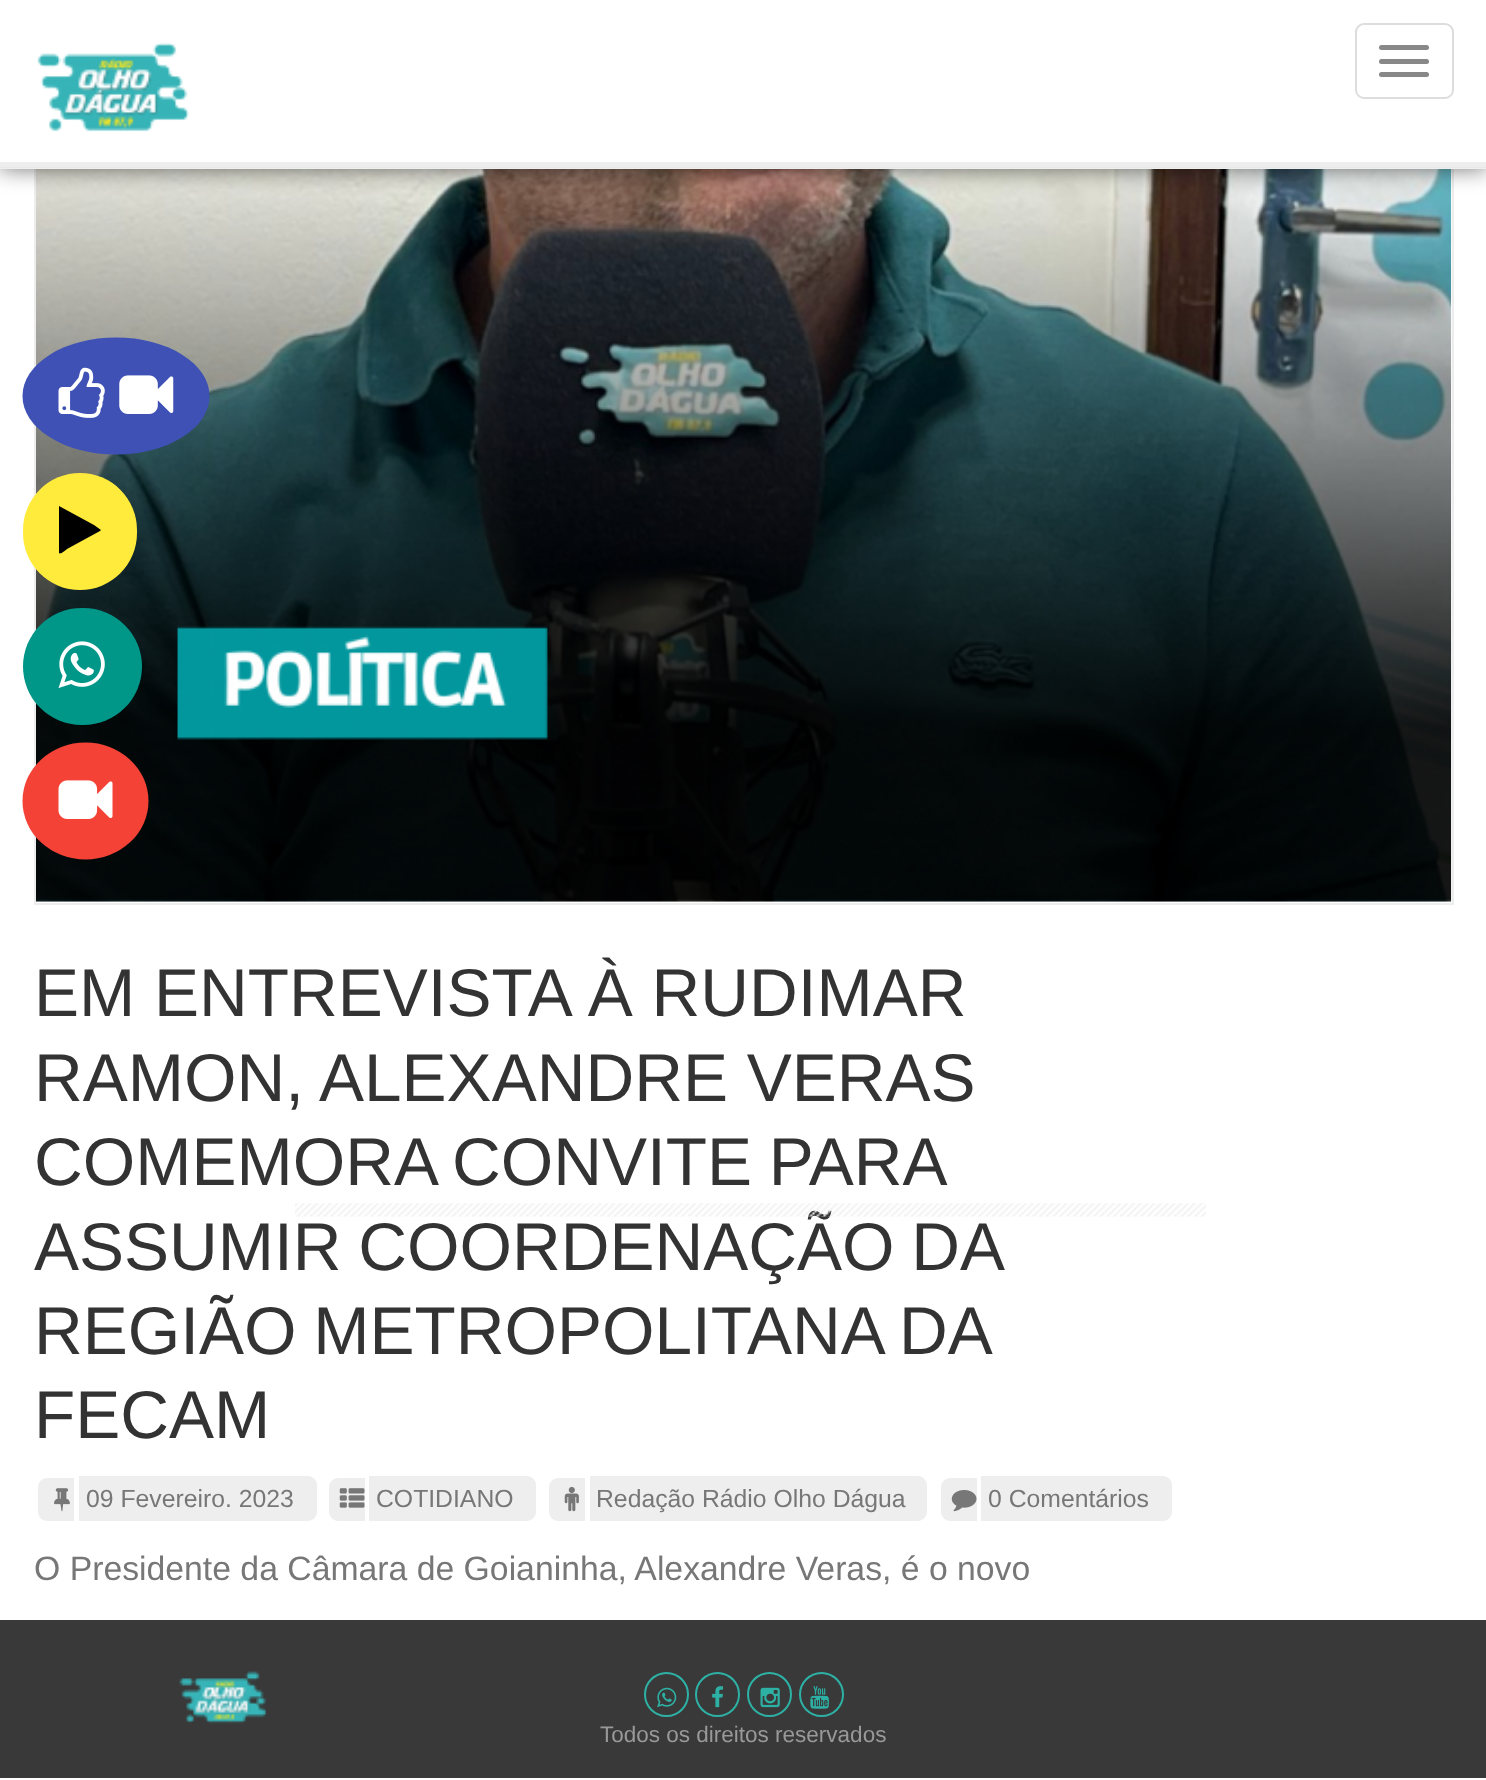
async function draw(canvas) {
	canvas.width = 1486;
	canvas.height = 1780;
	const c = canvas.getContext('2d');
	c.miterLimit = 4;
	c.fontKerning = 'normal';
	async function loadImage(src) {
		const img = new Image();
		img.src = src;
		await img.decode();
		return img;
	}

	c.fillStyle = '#fff';
	c.fillRect(0, 0, 1486, 1780);
	c.strokeStyle = '#ededed';
	c.lineWidth = 2;
	c.strokeRect(35, -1, 1418, 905);
	c.drawImage(await loadImage('img7.png'), 36, 169, 1416, 733);
	c.fillStyle = '#009688';
	c.beginPath();
	c.roundRect(23, 608, 119, 117, 58.5);
	c.fill();
	c.drawImage(await loadImage('img1.png'), 58, 641, 47, 47);
	c.fillStyle = '#0000008a';
	c.filter = 'blur(11px)';
	c.beginPath();
	c.rect(0, 0, 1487, 169);
	c.fill();
	c.filter = 'none';
	c.fillStyle = '#fff';
	c.fillRect(0, 0, 1486, 169);
	c.drawImage(await loadImage('img2.png'), 0, 162, 1486, 7);
	c.drawImage(await loadImage('img3.png'), 37, 42, 153, 90);
	c.beginPath();
	c.roundRect(1356, 24, 97, 74, 8);
	c.strokeStyle = '#ddd';
	c.stroke();
	c.fillStyle = '#888';
	c.beginPath();
	c.roundRect(1379, 45, 50, 5, 2.5);
	c.fill();
	c.beginPath();
	c.roundRect(1379, 59, 50, 5, 2.5);
	c.fill();
	c.beginPath();
	c.roundRect(1379, 72, 50, 5, 2.5);
	c.fill();
	c.fillStyle = '#3f51b5';
	c.beginPath();
	c.ellipse(116, 396, 93.5, 58.5, 0, 0, 2 * Math.PI);
	c.fill();
	c.drawImage(await loadImage('img4.png'), 58, 367, 47, 51);
	c.drawImage(await loadImage('img5.png'), 119, 375, 55, 39);
	c.fillStyle = '#ffeb3b';
	c.beginPath();
	c.roundRect(23, 473, 114, 117, 57);
	c.fill();
	c.fillStyle = '#000';
	c.beginPath();
	c.moveTo(100, 531);
	c.lineTo(67, 549);
	c.bezierCurveTo(66, 550, 60, 555, 59, 553);
	c.lineTo(59, 507);
	c.lineTo(59, 506);
	c.lineTo(94, 525);
	c.lineTo(101, 530);
	c.closePath();
	c.fill();
	c.fillStyle = '#f44336';
	c.beginPath();
	c.ellipse(85.5, 801, 63, 58.5, 0, 0, 2 * Math.PI);
	c.fill();
	c.drawImage(await loadImage('img6.png'), 58, 780, 55, 39);
	c.font = '67.5px Liberation Sans';
	c.fillStyle = '#333';
	c.fillText('EM ENTREVISTA À RUDIMAR', 34, 1016);
	c.fillText('RAMON, ALEXANDRE VERAS', 34, 1101);
	c.wordSpacing = '-2px';
	c.fillText('COMEMORA CONVITE PARA', 34, 1185);
	c.fillText('ASSUMIR COORDENAÇÃO DA', 34, 1270);
	c.drawImage(await loadImage('img8.png'), 295, 1203, 911, 14);
	c.fillText('REGIÃO METROPOLITANA DA', 34, 1354);
	c.wordSpacing = '0px';
	c.fillText('FECAM', 34, 1438);
	c.fillStyle = '#eee';
	c.beginPath();
	c.roundRect(38, 1478, 36, 43, [9, 0, 0, 9]);
	c.fill();
	c.beginPath();
	c.roundRect(79, 1476, 238, 45, [0, 9, 9, 0]);
	c.fill();
	c.drawImage(await loadImage('img9.png'), 54, 1488, 16, 24);
	c.font = '24.75px Liberation Sans';
	c.fillStyle = '#777';
	c.fillText('09 Fevereiro. 2023', 86, 1507);
	c.fillStyle = '#eee';
	c.beginPath();
	c.roundRect(329, 1478, 36, 43, [9, 0, 0, 9]);
	c.fill();
	c.beginPath();
	c.roundRect(369, 1476, 167, 45, [0, 9, 9, 0]);
	c.fill();
	c.drawImage(await loadImage('img10.png'), 339, 1488, 26, 20);
	c.fillStyle = '#777';
	c.fillText('COTIDIANO', 376, 1507);
	c.fillStyle = '#eee';
	c.beginPath();
	c.roundRect(549, 1478, 36, 43, [9, 0, 0, 9]);
	c.fill();
	c.beginPath();
	c.roundRect(590, 1476, 337, 45, [0, 9, 9, 0]);
	c.fill();
	c.drawImage(await loadImage('img11.png'), 564, 1486, 15, 26);
	c.fillStyle = '#777';
	c.fillText('Redação Rádio Olho Dágua', 596, 1507);
	c.fillStyle = '#eee';
	c.beginPath();
	c.roundRect(941, 1478, 36, 43, [9, 0, 0, 9]);
	c.fill();
	c.beginPath();
	c.roundRect(981, 1476, 191, 45, [0, 9, 9, 0]);
	c.fill();
	c.drawImage(await loadImage('img12.png'), 951, 1490, 26, 22);
	c.fillStyle = '#777';
	c.fillText('0 Comentários', 988, 1507);
	c.font = '33.75px Liberation Sans';
	c.fillText('O Presidente da Câmara de Goianinha, Alexandre Veras, é o novo', 34, 1580);
	c.fillStyle = '#070707cc';
	c.fillRect(0, 1620, 1486, 158);
	c.drawImage(await loadImage('img13.png'), 179, 1671, 88, 53);
	c.beginPath();
	c.arc(666.5, 1694.5, 21.5, 0, 2 * Math.PI);
	c.strokeStyle = '#2eb1a5';
	c.stroke();
	c.drawImage(await loadImage('img14.png'), 657, 1687, 20, 21);
	c.beginPath();
	c.arc(717.5, 1694.5, 21.5, 0, 2 * Math.PI);
	c.stroke();
	c.drawImage(await loadImage('img15.png'), 712, 1686, 12, 22);
	c.beginPath();
	c.arc(769.5, 1694.5, 21.5, 0, 2 * Math.PI);
	c.stroke();
	c.drawImage(await loadImage('img16.png'), 760, 1687, 20, 21);
	c.beginPath();
	c.arc(821.5, 1694.5, 21.5, 0, 2 * Math.PI);
	c.stroke();
	c.drawImage(await loadImage('img17.png'), 810, 1686, 19, 23);
	c.font = '22.5px Liberation Sans';
	c.fillStyle = '#999';
	c.fillText('Todos os direitos reservados', 600, 1742);
}

draw(document.querySelector('canvas'));
